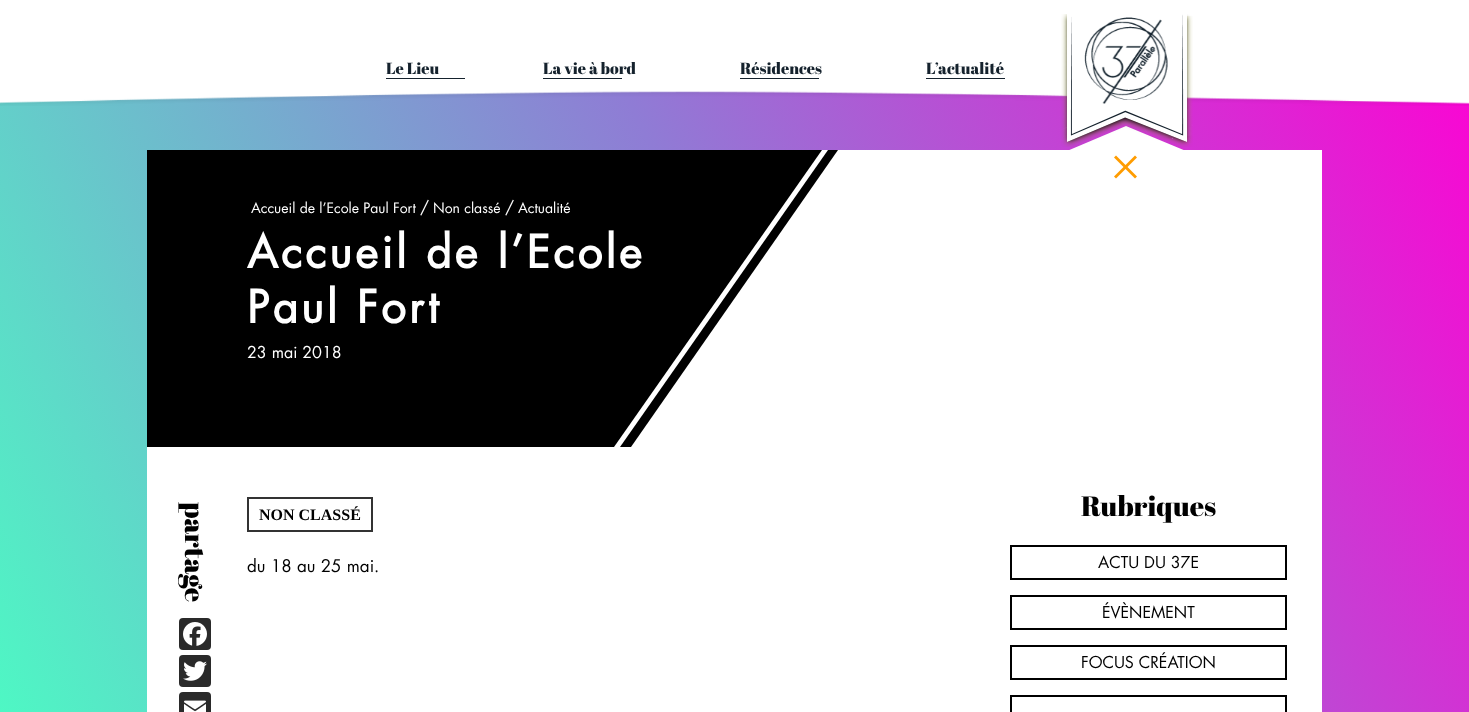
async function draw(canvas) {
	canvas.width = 1469;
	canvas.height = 712;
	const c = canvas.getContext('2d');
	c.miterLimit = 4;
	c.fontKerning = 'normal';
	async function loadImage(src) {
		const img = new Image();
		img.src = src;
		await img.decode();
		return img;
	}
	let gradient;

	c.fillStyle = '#fff';
	c.fillRect(0, 0, 1469, 712);
	gradient = c.createLinearGradient(-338, 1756, 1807, 663);
	gradient.addColorStop(0, '#e3ff00');
	gradient.addColorStop(0.3, '#4affc3');
	gradient.addColorStop(0.67, '#8f7cd5');
	gradient.addColorStop(1, '#ff00d3');
	c.fillStyle = gradient;
	c.fillRect(0, 91, 1469, 621);
	c.drawImage(await loadImage('img1.png'), 0, 0, 1469, 106);
	c.font = '16px Abril Fatface';
	c.fillStyle = '#15222d';
	c.fillText('Le Lieu', 386, 74);
	c.fillRect(386, 78, 79, 1);
	c.fillText('La vie à bord', 543, 74);
	c.fillRect(543, 78, 79, 1);
	c.fillText('Résidences', 740, 74);
	c.fillRect(740, 78, 79, 1);
	c.fillText('L’actualité', 926, 74);
	c.fillRect(926, 78, 79, 1);
	c.fillStyle = '#fff';
	c.fillRect(147, 150, 1175, 562);
	c.beginPath();
	c.moveTo(1186, 151);
	c.lineTo(1067, 151);
	c.lineTo(1126, 126);
	c.closePath();
	c.fill();
	c.drawImage(await loadImage('img2.png'), 1061, 14, 132, 133);
	c.drawImage(await loadImage('img3.png'), 1084, 17, 84, 87);
	c.fillStyle = '#ff9c00';
	c.beginPath();
	c.moveTo(1116, 155.5);
	c.lineTo(1137, 176.5);
	c.lineTo(1135, 178.5);
	c.lineTo(1114, 157.5);
	c.closePath();
	c.fill();
	c.beginPath();
	c.moveTo(1114, 176.5);
	c.lineTo(1135, 155.5);
	c.lineTo(1137, 157.5);
	c.lineTo(1116, 178.5);
	c.closePath();
	c.fill();
	c.save();
	c.beginPath();
	c.rect(147, 150, 1175, 297);
	c.clip();
	c.fillStyle = '#000';
	c.beginPath();
	c.moveTo(16, 150);
	c.lineTo(838, 150);
	c.lineTo(631, 447);
	c.lineTo(-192, 447);
	c.closePath();
	c.fill();
	c.restore();
	c.fillStyle = '#fff';
	c.beginPath();
	c.moveTo(822, 150);
	c.lineTo(828, 150);
	c.lineTo(620, 447);
	c.lineTo(614, 447);
	c.closePath();
	c.fill();
	c.font = '14px Futura';
	c.fillText('Accueil de l’Ecole Paul Fort', 251, 213);
	c.font = '16px Futura';
	c.fillText('/', 420, 213);
	c.font = '14px Futura';
	c.fillText('Non classé', 433, 213);
	c.font = '16px Futura';
	c.fillText('/', 505, 213);
	c.font = '14px Futura';
	c.fillText('Actualité', 518, 213);
	c.letterSpacing = '3.25px';
	c.font = 'bold 44px Futura';
	c.fillText('Accueil de l’Ecole', 247, 268);
	c.fillText('Paul Fort', 247, 323);
	c.letterSpacing = '0px';
	c.font = '16px Futura';
	c.fillText('23 mai 2018', 247, 358);
	c.font = '28px Abril Fatface';
	c.fillStyle = '#000';
	c.save();
	c.translate(185, 502);
	c.rotate(90 * Math.PI / 180);
	c.fillText('partage', 0, 0);
	c.restore();
	c.fillStyle = '#2a2a2a';
	c.beginPath();
	c.roundRect(179, 618, 32, 32, 4);
	c.fill();
	c.drawImage(await loadImage('img4.png'), 183, 622, 24, 24);
	c.beginPath();
	c.roundRect(179, 655, 32, 32, 4);
	c.fill();
	c.drawImage(await loadImage('img5.png'), 183, 661, 24, 20);
	c.beginPath();
	c.roundRect(179, 692, 32, 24, 4);
	c.fill();
	c.drawImage(await loadImage('img6.png'), 184, 700, 22, 12);
	c.font = '17px Futura';
	c.fillStyle = '#000';
	c.fillText('du 18 au 25 mai.', 247, 572);
	c.strokeStyle = '#333';
	c.lineWidth = 2;
	c.strokeRect(248, 498, 124, 33);
	c.font = 'bold 16px Liberation Serif';
	c.fillText('NON CLASSÉ', 259, 520);
	c.font = '28px Abril Fatface';
	c.fillText('Rubriques', 1081, 516);
	c.strokeStyle = '#000';
	c.strokeRect(1011, 546, 275, 33);
	c.font = '16px Futura';
	c.fillText('ACTU DU 37E', 1098, 568);
	c.strokeRect(1011, 596, 275, 33);
	c.fillText('ÉVÈNEMENT', 1102, 618);
	c.strokeRect(1011, 646, 275, 33);
	c.fillText('FOCUS CRÉATION', 1081, 668);
	c.strokeRect(1011, 696, 275, 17);
}

draw(document.querySelector('canvas'));
